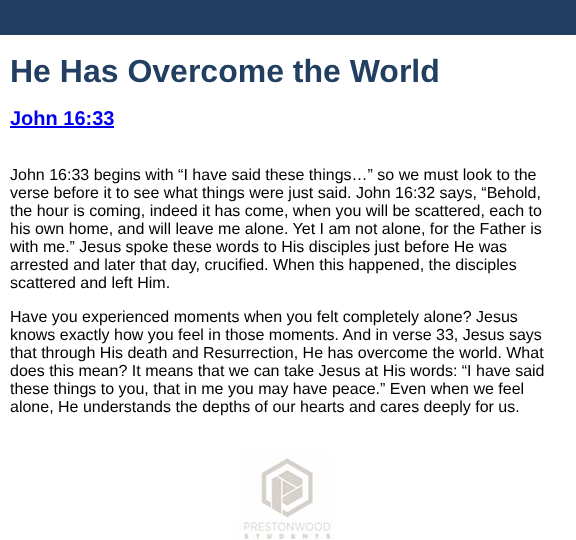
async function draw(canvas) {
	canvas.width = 576;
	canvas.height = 540;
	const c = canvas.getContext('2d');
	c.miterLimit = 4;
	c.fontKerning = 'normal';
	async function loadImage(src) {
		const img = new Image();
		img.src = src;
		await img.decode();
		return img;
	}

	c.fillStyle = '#fff';
	c.fillRect(0, 0, 576, 540);
	c.fillStyle = '#223f61';
	c.fillRect(0, 0, 576, 35);
	c.font = 'bold 32px Liberation Sans';
	c.fillText('He Has Overcome the World', 10, 82);
	c.font = 'bold 20px Liberation Sans';
	c.fillStyle = '#00e';
	c.fillText('John 16:33', 10, 125);
	c.fillRect(10, 126, 104, 2);
	c.font = '16px Liberation Sans';
	c.fillStyle = '#000';
	for (const [text, x, y] of [
		['John 16:33 begins with “I have said these things…” so we must look to the', 10, 180],
		['verse before it to see what things were just said. John 16:32 says, “Behold,', 10, 198],
		['the hour is coming, indeed it has come, when you will be scattered, each to', 10, 216],
		['his own home, and will leave me alone. Yet I am not alone, for the Father is', 10, 234],
		['with me.” Jesus spoke these words to His disciples just before He was', 10, 252],
		['arrested and later that day, crucified. When this happened, the disciples', 10, 270],
		['scattered and left Him.', 10, 288],
		['Have you experienced moments when you felt completely alone? Jesus', 10, 322],
		['knows exactly how you feel in those moments. And in verse 33, Jesus says', 10, 340],
		['that through His death and Resurrection, He has overcome the world. What', 10, 358],
		['does this mean? It means that we can take Jesus at His words: “I have said', 10, 376],
		['these things to you, that in me you may have peace.” Even when we feel', 10, 394],
		['alone, He understands the depths of our hearts and cares deeply for us.', 10, 412],
	]) {
		c.fillText(text, x, y);
	}
	c.drawImage(await loadImage('img1.png'), 238, 453, 96, 87);
}

draw(document.querySelector('canvas'));
